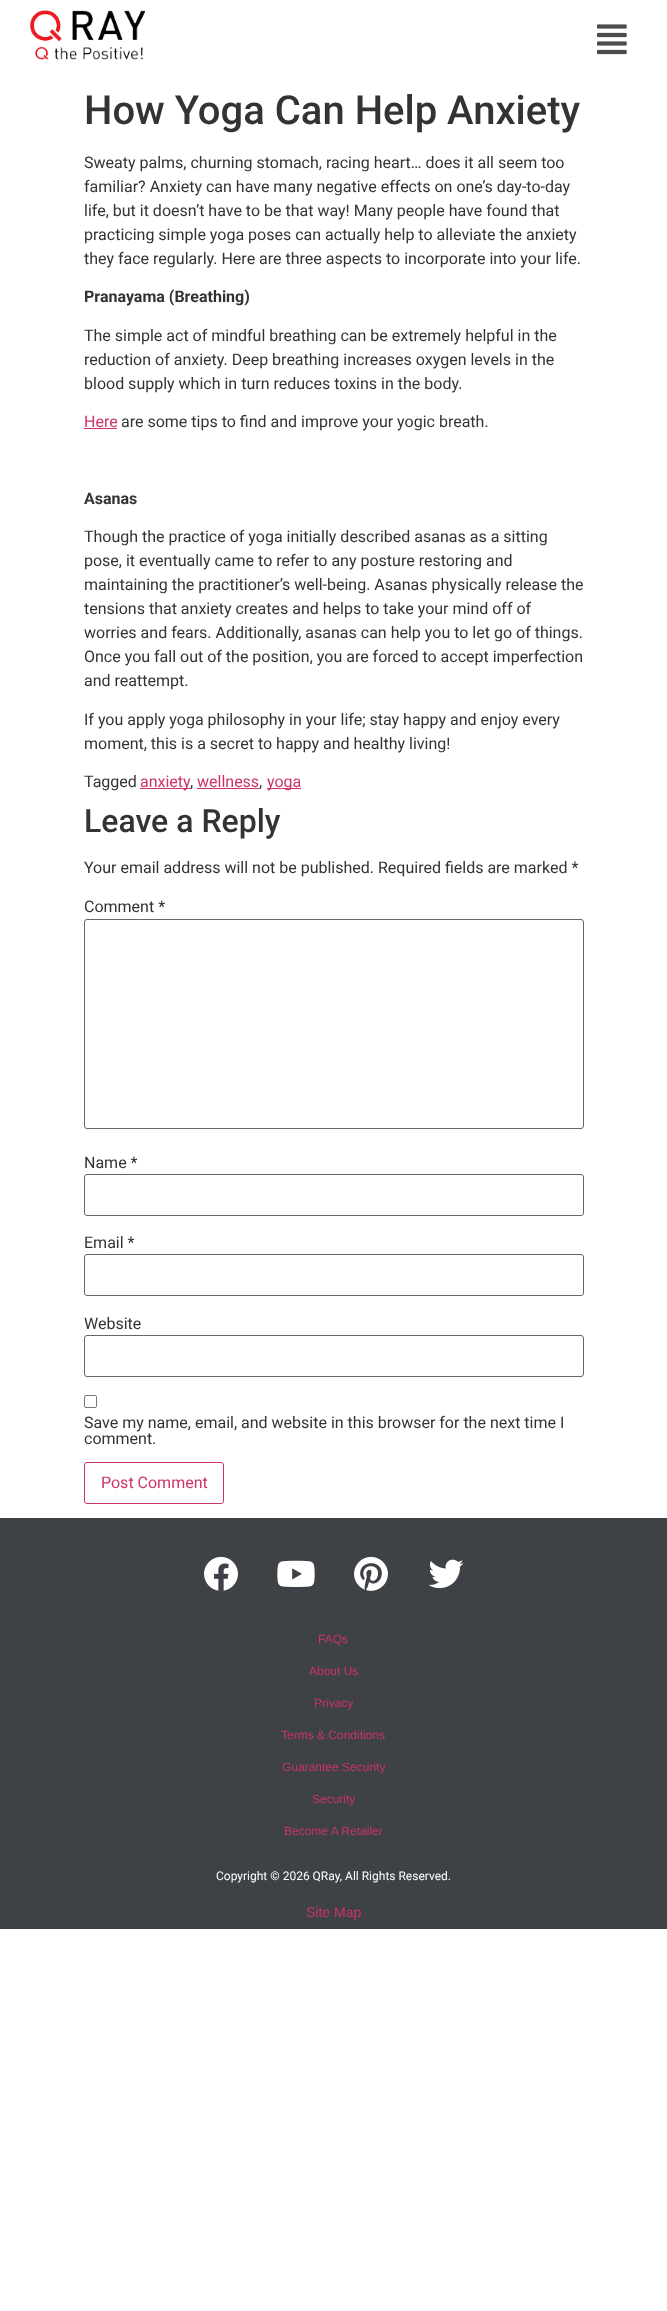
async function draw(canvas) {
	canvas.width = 667;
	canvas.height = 2311;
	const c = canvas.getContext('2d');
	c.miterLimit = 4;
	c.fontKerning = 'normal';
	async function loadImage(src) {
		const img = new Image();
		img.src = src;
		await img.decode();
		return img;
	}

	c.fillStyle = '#fff';
	c.fillRect(0, 0, 667, 2311);
	c.drawImage(await loadImage('img1.png'), 30, 10, 115, 50);
	c.drawImage(await loadImage('img2.png'), 597, 24, 30, 31);
	c.font = '500 40px Roboto';
	c.fillStyle = '#333';
	c.fillText('How Yoga Can Help Anxiety', 84, 124);
	c.font = '16px Roboto';
	for (const [text, x, y] of [
		['Sweaty palms, churning stomach, racing heart… does it all seem too', 84, 168],
		['familiar? Anxiety can have many negative effects on one’s day-to-day', 84, 192],
		['life, but it doesn’t have to be that way! Many people have found that', 84, 216],
		['practicing simple yoga poses can actually help to alleviate the anxiety', 84, 240],
		['they face regularly. Here are three aspects to incorporate into your life.', 84, 264],
	]) {
		c.fillText(text, x, y);
	}
	c.font = 'bold 16px Roboto';
	c.fillText('Pranayama (Breathing)', 84, 302);
	c.font = '16px Roboto';
	for (const [text, x, y] of [
		['The simple act of mindful breathing can be extremely helpful in the', 84, 341],
		['reduction of anxiety. Deep breathing increases oxygen levels in the', 84, 365],
		['blood supply which in turn reduces toxins in the body.', 84, 389],
	]) {
		c.fillText(text, x, y);
	}
	c.fillStyle = '#c36';
	c.fillText('Here', 84, 427);
	c.fillRect(84, 428, 33, 1);
	c.fillStyle = '#333';
	c.fillText('are some tips to find and improve your yogic breath.', 121, 427);
	c.font = 'bold 16px Roboto';
	c.fillText('Asanas', 84, 504);
	c.font = '16px Roboto';
	for (const [text, x, y] of [
		['Though the practice of yoga initially described asanas as a sitting', 84, 542],
		['pose, it eventually came to refer to any posture restoring and', 84, 566],
		['maintaining the practitioner’s well-being. Asanas physically release the', 84, 590],
		['tensions that anxiety creates and helps to take your mind off of', 84, 614],
		['worries and fears. Additionally, asanas can help you to let go of things.', 84, 638],
		['Once you fall out of the position, you are forced to accept imperfection', 84, 662],
		['and reattempt.', 84, 686],
		['If you apply yoga philosophy in your life; stay happy and enjoy every', 84, 725],
		['moment, this is a secret to happy and healthy living!', 84, 749],
		['Tagged', 84, 787],
	]) {
		c.fillText(text, x, y);
	}
	c.fillStyle = '#c36';
	c.fillRect(140, 788, 50, 1);
	c.fillText('anxiety', 140, 787);
	c.fillStyle = '#333';
	c.fillText(',', 190, 787);
	c.fillStyle = '#c36';
	c.fillText('wellness', 197, 787);
	c.fillStyle = '#333';
	c.fillText(',', 259, 787);
	c.fillStyle = '#c36';
	c.fillRect(197, 788, 62, 1);
	c.fillRect(267, 788, 34, 1);
	c.fillText('yoga', 267, 787);
	c.font = '500 32px Roboto';
	c.fillStyle = '#333';
	c.fillText('Leave a Reply', 84, 832);
	c.font = '16px Roboto';
	c.fillText('Your email address will not be published. Required fields are marked *', 84, 873);
	c.fillText('Comment *', 84, 912);
	c.beginPath();
	c.roundRect(84.5, 919.5, 499, 209, 2.5);
	c.strokeStyle = '#666';
	c.stroke();
	c.fillText('Name *', 84, 1168);
	c.beginPath();
	c.roundRect(84.5, 1174.5, 499, 41, 2.5);
	c.stroke();
	c.fillText('Email *', 84, 1248);
	c.beginPath();
	c.roundRect(84.5, 1254.5, 499, 41, 2.5);
	c.stroke();
	c.fillText('Website', 84, 1329);
	c.beginPath();
	c.roundRect(84.5, 1335.5, 499, 41, 2.5);
	c.stroke();
	c.beginPath();
	c.roundRect(84.5, 1395.5, 12, 12, 1.5);
	c.strokeStyle = '#767676';
	c.stroke();
	c.fillText('Save my name, email, and website in this browser for the next time I', 84, 1428);
	c.fillText('comment.', 84, 1444);
	c.beginPath();
	c.roundRect(84.5, 1462.5, 139, 41, 2.5);
	c.strokeStyle = '#c36';
	c.stroke();
	c.fillStyle = '#c36';
	c.fillText('Post Comment', 101, 1488);
	c.fillStyle = '#3e4247';
	c.fillRect(0, 1518, 667, 411);
	c.drawImage(await loadImage('img3.png'), 204, 1556, 34, 35);
	c.drawImage(await loadImage('img4.png'), 277, 1560, 38, 27);
	c.drawImage(await loadImage('img5.png'), 354, 1556, 34, 35);
	c.drawImage(await loadImage('img6.png'), 428, 1559, 36, 30);
	c.font = '12px Liberation Sans';
	c.fillStyle = '#c36';
	for (const [text, x, y] of [
		['FAQs', 318, 1643],
		['About Us', 309, 1675],
		['Privacy', 314, 1707],
		['Terms & Conditions', 281, 1739],
		['Guarantee Security', 282, 1771],
		['Security', 312, 1803],
		['Become A Retailer', 284, 1835],
	]) {
		c.fillText(text, x, y);
	}
	c.font = '12px Roboto';
	c.fillStyle = '#fff';
	c.fillText('Copyright © 2026 QRay, All Rights Reserved.', 216, 1880);
	c.font = '14px Liberation Sans';
	c.fillStyle = '#c36';
	c.fillText('Site Map', 306, 1917);
}

draw(document.querySelector('canvas'));
